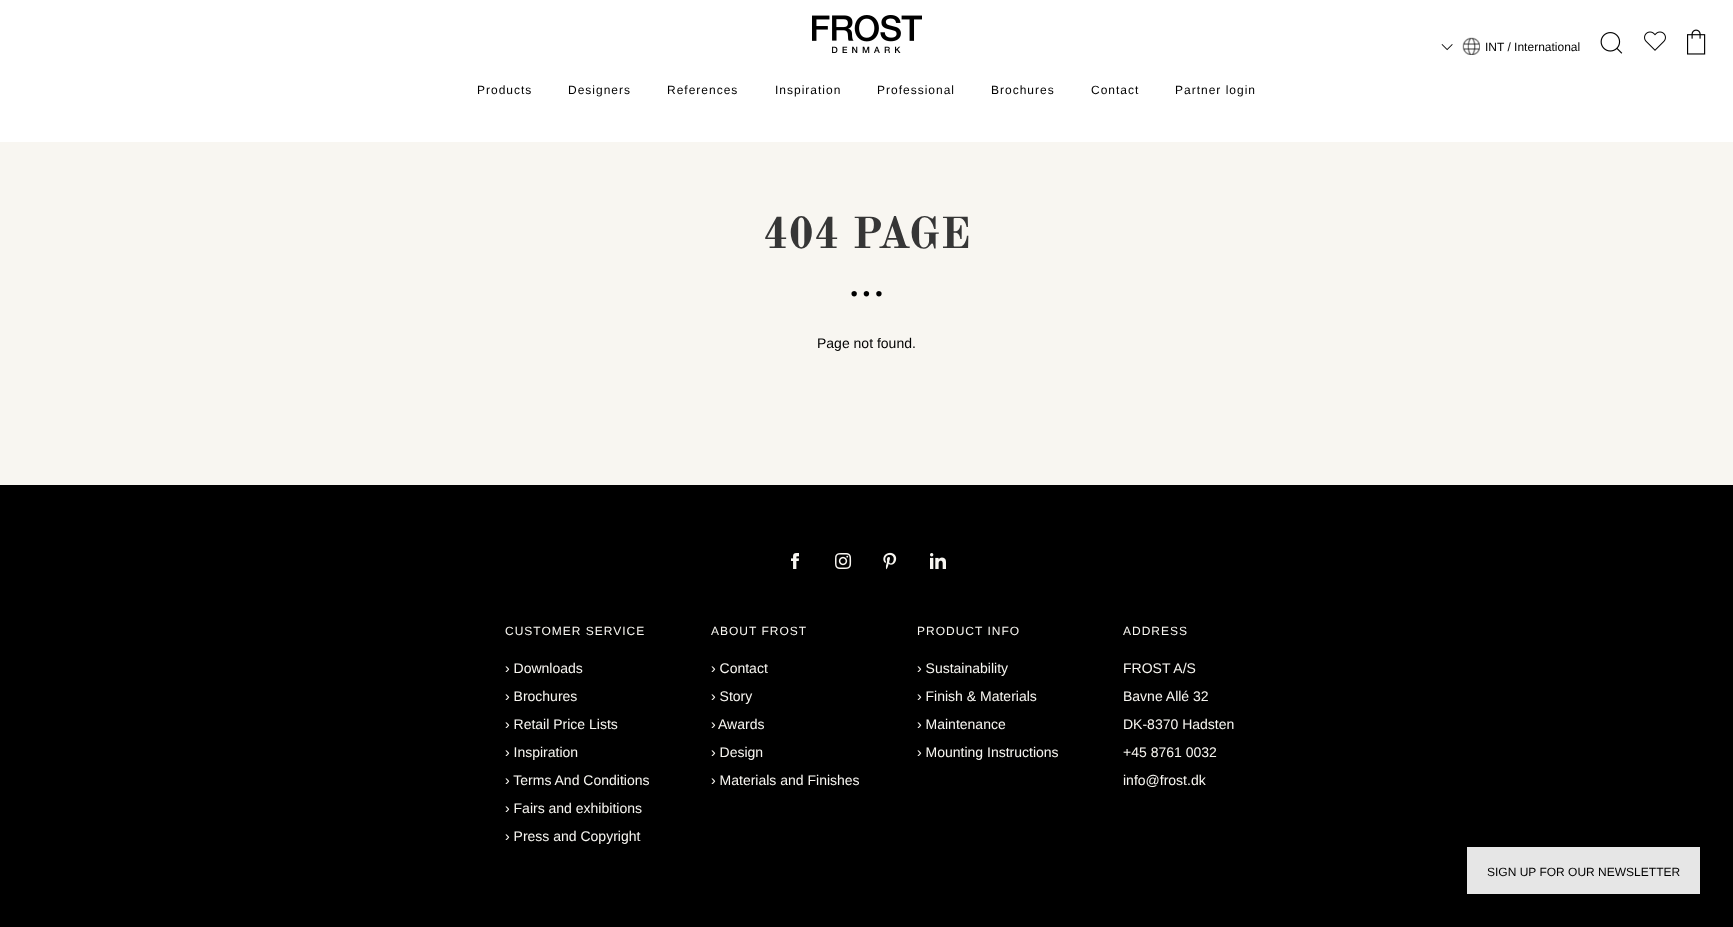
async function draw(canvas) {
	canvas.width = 1733;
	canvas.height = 927;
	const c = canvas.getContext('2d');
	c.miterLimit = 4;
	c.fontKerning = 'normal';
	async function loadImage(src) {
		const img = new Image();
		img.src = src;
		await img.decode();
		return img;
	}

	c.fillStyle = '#f8f6f1';
	c.fillRect(0, 0, 1733, 927);
	c.fillStyle = '#fff';
	c.fillRect(0, 0, 1733, 142);
	c.drawImage(await loadImage('img1.png'), 812, 15, 110, 38);
	c.drawImage(await loadImage('img2.png'), 1441, 44, 12, 7);
	c.drawImage(await loadImage('img3.png'), 1462, 37, 18, 18);
	c.font = '12px Liberation Sans';
	c.fillStyle = '#000';
	c.fillText('INT / International', 1485, 51);
	c.drawImage(await loadImage('img4.png'), 1600, 32, 23, 22);
	c.drawImage(await loadImage('img5.png'), 1644, 31, 22, 20);
	c.drawImage(await loadImage('img6.png'), 1687, 29, 19, 26);
	c.letterSpacing = '1px';
	for (const [text, x, y] of [
		['Products', 477, 94],
		['Designers', 568, 94],
		['References', 667, 94],
		['Inspiration', 775, 94],
		['Professional', 877, 94],
		['Brochures', 991, 94],
		['Contact', 1091, 94],
		['Partner login', 1175, 94],
	]) {
		c.fillText(text, x, y);
	}
	c.letterSpacing = '0px';
	c.font = 'bold 44px Old Standard TT';
	c.fillStyle = '#363636';
	c.fillText('404 PAGE', 763, 248);
	c.font = '44px Old Standard TT';
	c.fillStyle = '#000';
	c.fillText('...', 848, 296);
	c.font = '14px Liberation Sans';
	c.fillText('Page not found.', 817, 348);
	c.fillRect(0, 485, 1733, 442);
	c.fillStyle = '#e6e6e6';
	c.fillRect(1467, 847, 233, 47);
	c.font = '12px Liberation Sans';
	c.fillStyle = '#000';
	c.fillText('SIGN UP FOR OUR NEWSLETTER', 1487, 876);
	c.drawImage(await loadImage('img7.png'), 791, 553, 8, 16);
	c.drawImage(await loadImage('img8.png'), 835, 553, 17, 16);
	c.drawImage(await loadImage('img9.png'), 883, 552, 14, 18);
	c.drawImage(await loadImage('img10.png'), 930, 553, 16, 16);
	c.letterSpacing = '1px';
	c.fillStyle = '#f8f6f1';
	c.fillText('CUSTOMER SERVICE', 505, 635);
	c.letterSpacing = '0px';
	c.font = '14px Liberation Sans';
	for (const [text, x, y] of [
		['› Downloads', 505, 673],
		['› Brochures', 505, 701],
		['› Retail Price Lists', 505, 729],
		['› Inspiration', 505, 757],
		['› Terms And Conditions', 505, 785],
		['› Fairs and exhibitions', 505, 813],
		['› Press and Copyright', 505, 841],
	]) {
		c.fillText(text, x, y);
	}
	c.letterSpacing = '1px';
	c.font = '12px Liberation Sans';
	c.fillText('ABOUT FROST', 711, 635);
	c.letterSpacing = '0px';
	c.font = '14px Liberation Sans';
	for (const [text, x, y] of [
		['› Contact', 711, 673],
		['› Story', 711, 701],
		['›', 711, 729],
		['Awards', 718, 729],
		['› Design', 711, 757],
		['› Materials and Finishes', 711, 785],
	]) {
		c.fillText(text, x, y);
	}
	c.letterSpacing = '1px';
	c.font = '12px Liberation Sans';
	c.fillText('PRODUCT INFO', 917, 635);
	c.letterSpacing = '0px';
	c.font = '14px Liberation Sans';
	for (const [text, x, y] of [
		['› Sustainability', 917, 673],
		['› Finish & Materials', 917, 701],
		['› Maintenance', 917, 729],
		['› Mounting Instructions', 917, 757],
	]) {
		c.fillText(text, x, y);
	}
	c.letterSpacing = '1px';
	c.font = '12px Liberation Sans';
	c.fillText('ADDRESS', 1123, 635);
	c.letterSpacing = '0px';
	c.font = '14px Liberation Sans';
	for (const [text, x, y] of [
		['FROST A/S', 1123, 673],
		['Bavne Allé 32', 1123, 701],
		['DK-8370 Hadsten', 1123, 729],
		['+45 8761 0032', 1123, 757],
		['info@frost.dk', 1123, 785],
	]) {
		c.fillText(text, x, y);
	}
}

draw(document.querySelector('canvas'));
